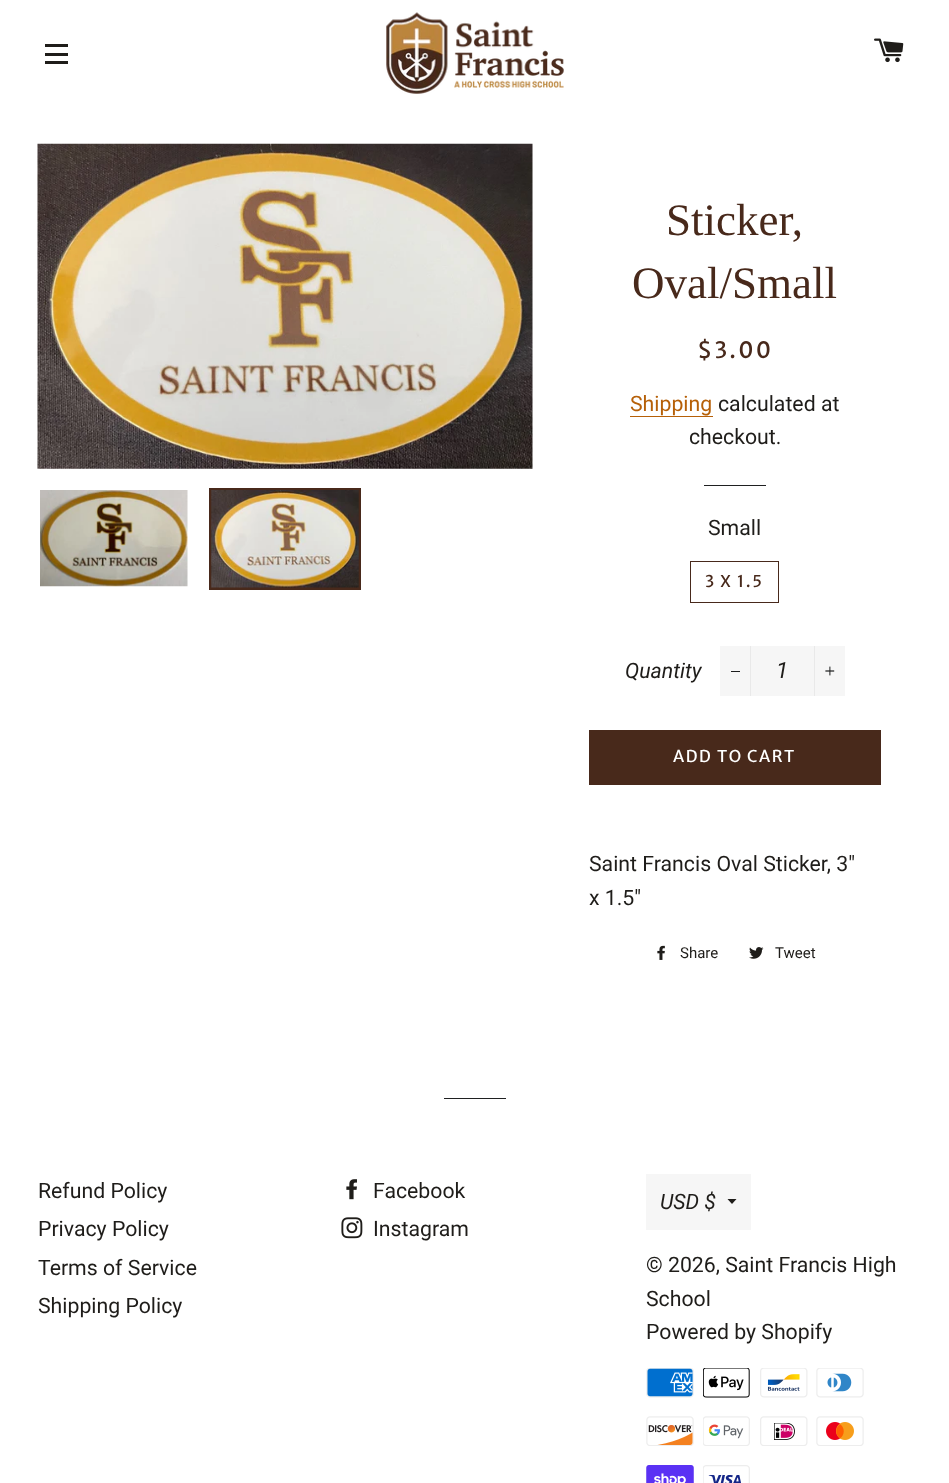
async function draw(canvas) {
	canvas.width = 949;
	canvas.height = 1483;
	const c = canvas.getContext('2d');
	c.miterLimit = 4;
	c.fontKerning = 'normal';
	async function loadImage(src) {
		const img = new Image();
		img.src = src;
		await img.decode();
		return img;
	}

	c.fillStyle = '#fff';
	c.fillRect(0, 0, 949, 1483);
	for (const [x, y, w, h, color] of [
		[45, 44, 23, 3, '#1f1d1a'],
		[45, 53, 23, 3, '#1f1d1a'],
		[45, 61, 23, 3, '#1f1d1a'],
	]) {
		c.fillStyle = color;
		c.fillRect(x, y, w, h);
	}
	c.drawImage(await loadImage('img1.png'), 386, 12, 178, 82);
	c.drawImage(await loadImage('img2.png'), 874, 38, 30, 25);
	c.drawImage(await loadImage('img3.png'), 37, 143, 496, 326);
	c.drawImage(await loadImage('img4.png'), 40, 490, 148, 97);
	c.strokeStyle = '#48291b';
	c.lineWidth = 3;
	c.strokeRect(210.5, 489.5, 149, 99);
	c.drawImage(await loadImage('img5.png'), 211, 490, 148, 98);
	c.font = '45px Liberation Serif';
	c.fillStyle = '#48291b';
	c.fillText('Sticker,', 666, 235);
	c.fillText('Oval/Small', 632, 298);
	c.letterSpacing = '2.25px';
	c.font = '22.5px Merriweather Sans';
	c.fillText('$3.00', 697, 358);
	c.letterSpacing = '0px';
	c.font = '21.25px Roboto';
	c.fillStyle = '#b66008';
	c.fillText('Shipping', 630, 411);
	c.fillRect(630, 416, 83, 1);
	c.fillStyle = '#1f1d1a';
	c.fillText('calculated at', 718, 411);
	c.fillText('checkout.', 689, 444);
	c.fillStyle = '#1f2021';
	c.fillRect(704, 485, 62, 1);
	c.fillStyle = '#1f1d1a';
	c.fillText('Small', 708, 535);
	c.lineWidth = 1;
	c.strokeRect(690.5, 561.5, 88, 41);
	c.letterSpacing = '1.6px';
	c.font = '16.25px Merriweather Sans';
	c.fillStyle = '#48291b';
	c.fillText('3 X 1.5', 705, 587);
	c.letterSpacing = '0px';
	c.font = 'italic 21.25px Roboto';
	c.fillStyle = '#1f1d1a';
	c.fillText('Quantity', 625, 678);
	for (const [x, y, w, h, color] of [
		[720, 646, 125, 50, '#f6f6f6'],
		[750, 646, 1, 50, '#e9e9e9'],
		[731, 671, 9, 1, '#1c1d1d'],
	]) {
		c.fillStyle = color;
		c.fillRect(x, y, w, h);
	}
	c.font = 'italic 22.5px Roboto';
	c.fillStyle = '#1f1d1a';
	c.fillText('1', 776, 678);
	c.fillStyle = '#e9e9e9';
	c.fillRect(814, 646, 1, 50);
	c.drawImage(await loadImage('img6.png'), 825, 666, 10, 10);
	c.fillStyle = '#48291b';
	c.fillRect(589, 730, 292, 55);
	c.letterSpacing = '1.6px';
	c.font = '16.25px Merriweather Sans';
	c.fillStyle = '#fff';
	c.fillText('ADD TO CART', 673, 762);
	c.letterSpacing = '0px';
	c.font = '21.25px Roboto';
	c.fillStyle = '#1f1d1a';
	c.fillText('Saint Francis Oval Sticker, 3"', 589, 871);
	c.fillText('x 1.5"', 589, 905);
	c.drawImage(await loadImage('img7.png'), 657, 945, 8, 15);
	c.font = '15px Roboto';
	c.fillText('Share', 680, 958);
	c.drawImage(await loadImage('img8.png'), 749, 947, 15, 12);
	c.fillText('Tweet', 775, 958);
	c.fillStyle = '#1f2021';
	c.fillRect(444, 1098, 62, 1);
	c.font = '21.25px Roboto';
	c.fillStyle = '#1f1d1a';
	for (const [text, x, y] of [
		['Refund Policy', 38, 1198],
		['Privacy Policy', 38, 1236],
		['Terms of Service', 38, 1275],
		['Shipping Policy', 38, 1313],
	]) {
		c.fillText(text, x, y);
	}
	c.drawImage(await loadImage('img9.png'), 346, 1179, 11, 21);
	c.fillText('Facebook', 373, 1198);
	c.drawImage(await loadImage('img10.png'), 341, 1217, 22, 22);
	c.fillText('Instagram', 373, 1236);
	c.fillStyle = '#f6f6f6';
	c.fillRect(646, 1174, 105, 56);
	c.fillStyle = '#1f1d1a';
	c.beginPath();
	c.moveTo(727.5, 1199);
	c.lineTo(732, 1204);
	c.lineTo(736.5, 1199);
	c.closePath();
	c.fill();
	c.font = 'italic 21.25px Roboto';
	c.fillText('USD $', 660, 1209);
	c.font = '21.25px Roboto';
	for (const [text, x, y] of [
		['© 2026, Saint Francis High', 646, 1272],
		['School', 646, 1306],
		['Powered by Shopify', 646, 1339],
	]) {
		c.fillText(text, x, y);
	}
	c.drawImage(await loadImage('img11.png'), 646, 1368, 48, 30);
	c.drawImage(await loadImage('img12.png'), 703, 1368, 47, 30);
	c.drawImage(await loadImage('img13.png'), 760, 1368, 48, 30);
	c.drawImage(await loadImage('img14.png'), 816, 1368, 48, 30);
	c.drawImage(await loadImage('img15.png'), 646, 1416, 48, 30);
	c.drawImage(await loadImage('img16.png'), 703, 1416, 47, 30);
	c.drawImage(await loadImage('img17.png'), 760, 1416, 48, 30);
	c.drawImage(await loadImage('img18.png'), 816, 1416, 48, 30);
	c.drawImage(await loadImage('img19.png'), 646, 1465, 48, 18);
	c.drawImage(await loadImage('img20.png'), 703, 1465, 47, 18);
}

draw(document.querySelector('canvas'));
